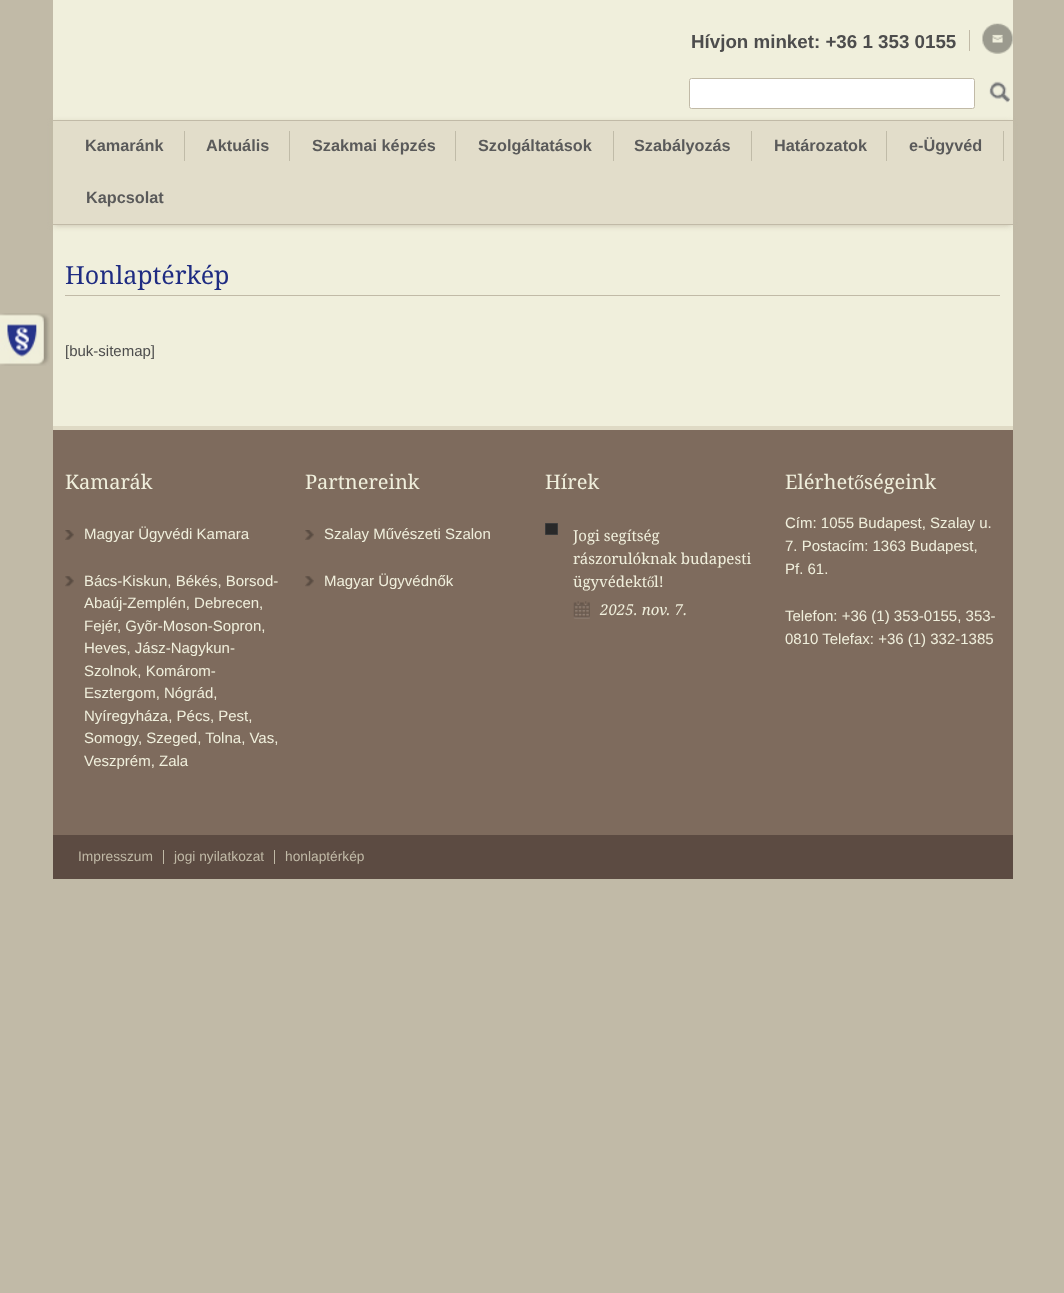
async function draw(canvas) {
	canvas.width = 1064;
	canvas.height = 1293;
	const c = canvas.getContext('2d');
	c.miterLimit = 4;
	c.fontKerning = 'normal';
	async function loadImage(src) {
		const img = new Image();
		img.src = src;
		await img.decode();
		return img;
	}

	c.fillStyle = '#c1baa7';
	c.fillRect(0, 0, 1064, 1293);
	c.fillStyle = '#f0efdc';
	c.fillRect(53, 0, 960, 426);
	c.font = 'bold 18.75px Liberation Sans';
	c.fillStyle = '#4d4d4d';
	c.fillText('Hívjon minket: +36 1 353 0155', 691, 48);
	c.fillStyle = '#c1baa7';
	c.fillRect(969, 30, 1, 21);
	c.drawImage(await loadImage('img1.png'), 982, 23, 31, 31);
	c.fillStyle = '#fff';
	c.beginPath();
	c.roundRect(689.5, 78.5, 285, 30, 2);
	c.fill();
	c.strokeStyle = '#c1baa7';
	c.stroke();
	c.drawImage(await loadImage('img2.png'), 989, 81, 21, 22);
	c.fillStyle = '#c1baa7';
	c.filter = 'blur(3px)';
	c.beginPath();
	c.rect(54, 123, 957, 102);
	c.fill();
	c.filter = 'none';
	for (const [x, y, w, h, color] of [
		[53, 121, 960, 103, '#e2ddca'],
		[53, 120, 960, 1, '#c1baa7'],
		[53, 224, 960, 1, '#c1baa7'],
		[184, 131, 1, 30, '#c0bba8'],
	]) {
		c.fillStyle = color;
		c.fillRect(x, y, w, h);
	}
	c.font = 'bold 16.25px Liberation Sans';
	c.fillStyle = '#5a5a5a';
	c.fillText('Kamaránk', 85, 151);
	c.fillStyle = '#c0bba8';
	c.fillRect(289, 131, 1, 30);
	c.fillStyle = '#5a5a5a';
	c.fillText('Aktuális', 206, 151);
	c.fillStyle = '#c0bba8';
	c.fillRect(455, 131, 1, 30);
	c.fillStyle = '#5a5a5a';
	c.fillText('Szakmai képzés', 312, 151);
	c.fillStyle = '#c0bba8';
	c.fillRect(613, 131, 1, 30);
	c.fillStyle = '#5a5a5a';
	c.fillText('Szolgáltatások', 478, 151);
	c.fillStyle = '#c0bba8';
	c.fillRect(751, 131, 1, 30);
	c.fillStyle = '#5a5a5a';
	c.fillText('Szabályozás', 634, 151);
	c.fillStyle = '#c0bba8';
	c.fillRect(886, 131, 1, 30);
	c.fillStyle = '#5a5a5a';
	c.fillText('Határozatok', 774, 151);
	c.fillStyle = '#c0bba8';
	c.fillRect(1003, 131, 1, 30);
	c.fillStyle = '#5a5a5a';
	c.fillText('e-Ügyvéd', 909, 151);
	c.fillText('Kapcsolat', 86, 203);
	c.drawImage(await loadImage('img3.png'), 0, 313, 50, 53);
	c.fillStyle = '#c1baa7';
	c.fillRect(65, 295, 935, 1);
	c.font = '25px Droid Serif';
	c.fillStyle = '#1f2c82';
	c.fillText('Honlaptérkép', 65, 284);
	c.font = '15px Liberation Sans';
	c.fillStyle = '#4d4d4d';
	c.fillText('[buk-sitemap]', 65, 356);
	c.fillStyle = '#7e6b5d';
	c.fillRect(53, 430, 960, 405);
	c.fillStyle = '#dfdac5';
	c.fillRect(53, 426, 960, 4);
	c.font = '20px Droid Serif';
	c.fillStyle = '#f0efdc';
	c.fillText('Kamarák', 65, 489);
	c.drawImage(await loadImage('img4.png'), 65, 530, 9, 10);
	c.font = '15px Liberation Sans';
	c.fillText('Magyar Ügyvédi Kamara', 84, 539);
	c.drawImage(await loadImage('img5.png'), 65, 576, 9, 11);
	for (const [text, x, y] of [
		['Bács-Kiskun, Békés, Borsod-', 84, 586],
		['Abaúj-Zemplén, Debrecen,', 84, 608],
		['Fejér', 84, 631],
		[', Gyõr-Moson-Sopron,', 117, 631],
		['Heves, Jász-Nagykun-', 84, 653],
		['Szolnok, Komárom-', 84, 676],
		['Esztergom, Nógrád,', 84, 698],
		['Nyíregyháza, Pécs, Pest,', 84, 721],
		['Somogy', 84, 743],
		[', Szeged, Tolna, Vas,', 138, 743],
		['Veszprém, Zala', 84, 766],
	]) {
		c.fillText(text, x, y);
	}
	c.font = '20px Droid Serif';
	c.fillText('Partnereink', 305, 489);
	c.drawImage(await loadImage('img4.png'), 305, 530, 9, 10);
	c.font = '15px Liberation Sans';
	c.fillText('Szalay Művészeti Szalon', 324, 539);
	c.drawImage(await loadImage('img5.png'), 305, 576, 9, 11);
	c.fillText('Magyar Ügyvédnők', 324, 586);
	c.font = '20px Droid Serif';
	c.fillText('Hírek', 545, 489);
	c.fillStyle = '#292929';
	c.beginPath();
	c.rect(545.5, 523.5, 12, 11);
	c.fill();
	c.strokeStyle = '#3b3b3b';
	c.stroke();
	c.font = '15px Droid Serif';
	c.fillStyle = '#f0efdc';
	for (const [text, x, y] of [
		['Jogi segítség', 573, 541],
		['rászorulóknak budapesti', 573, 564],
		['ügyvédekt', 573, 587],
	]) {
		c.fillText(text, x, y);
	}
	c.font = '15px Liberation Serif';
	c.fillText('ő', 647, 587);
	c.font = '15px Droid Serif';
	c.fillText('l!', 654, 587);
	c.drawImage(await loadImage('img6.png'), 573, 601, 17, 18);
	c.font = 'italic 15px Droid Serif';
	c.fillText('2025. nov. 7.', 600, 615);
	c.font = '20px Droid Serif';
	c.fillText('Elérhet', 785, 489);
	c.font = '20px Liberation Serif';
	c.fillText('ő', 854, 489);
	c.font = '20px Droid Serif';
	c.fillText('ségeink', 864, 489);
	c.font = '15px Liberation Sans';
	for (const [text, x, y] of [
		['Cím: 1055 Budapest, Szalay u.', 785, 528],
		['7. Postacím: 1363 Budapest,', 785, 551],
		['Pf. 61.', 785, 574],
		['Telefon: +36 (1) 353-0155, 353-', 785, 621],
		['0810 Telefax: +36 (1) 332-1385', 785, 644],
	]) {
		c.fillText(text, x, y);
	}
	c.fillStyle = '#5c4b42';
	c.fillRect(53, 835, 960, 44);
	c.fillStyle = '#c0b9a6';
	c.fillRect(163, 850, 1, 14);
	c.font = '13.75px Liberation Sans';
	c.fillText('Impresszum', 78, 861);
	c.fillRect(274, 850, 1, 14);
	c.fillText('jogi nyilatkozat', 174, 861);
	c.fillText('honlaptérkép', 285, 861);
}

draw(document.querySelector('canvas'));
